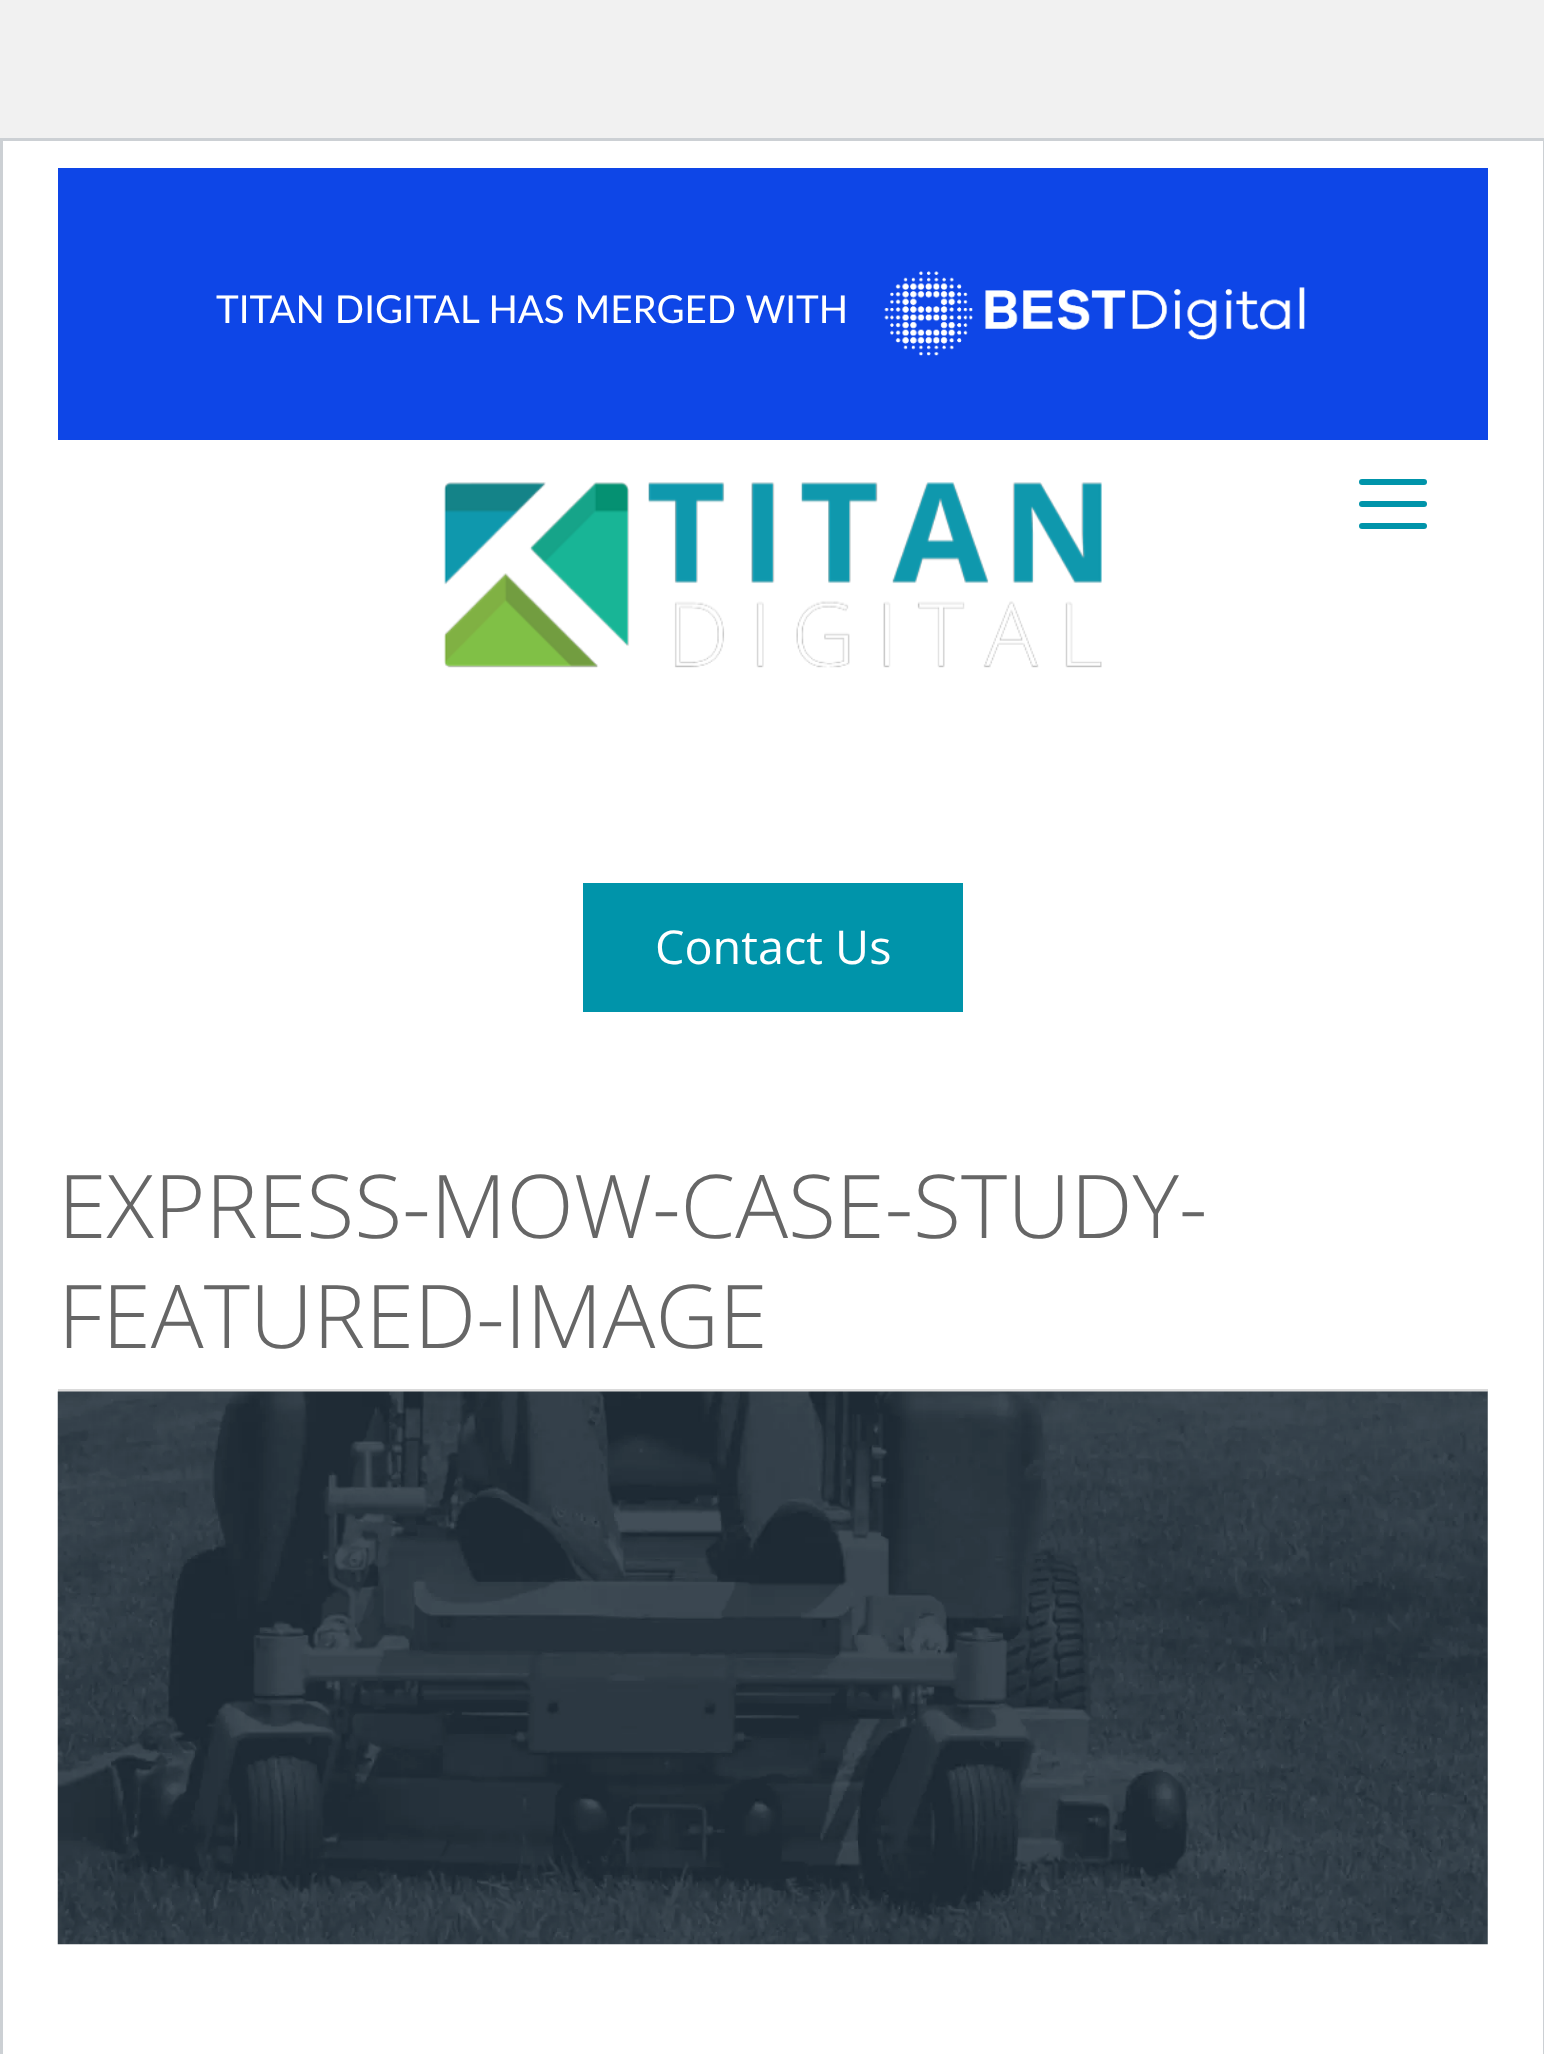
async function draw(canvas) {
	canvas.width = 1544;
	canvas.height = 2054;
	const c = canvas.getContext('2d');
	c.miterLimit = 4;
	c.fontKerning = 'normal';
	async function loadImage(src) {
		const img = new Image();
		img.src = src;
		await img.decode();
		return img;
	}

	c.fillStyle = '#f1f1f1';
	c.fillRect(0, 0, 1544, 2054);
	c.fillStyle = '#fff';
	c.beginPath();
	c.rect(1.5, 139.5, 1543, 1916);
	c.fill();
	c.strokeStyle = '#ccd0d4';
	c.lineWidth = 3;
	c.stroke();
	c.fillStyle = '#0e46e7';
	c.fillRect(58, 168, 1430, 272);
	c.font = '38.5px Lato';
	c.fillStyle = '#fff';
	c.fillText('TITAN DIGITAL HAS MERGED WITH', 216, 323);
	c.drawImage(await loadImage('img1.png'), 884, 271, 421, 85);
	c.drawImage(await loadImage('img2.png'), 443, 482, 659, 186);
	c.fillStyle = '#0094aa';
	c.beginPath();
	c.roundRect(1359, 479, 68, 6, 3);
	c.fill();
	c.beginPath();
	c.roundRect(1359, 501, 68, 6, 3);
	c.fill();
	c.beginPath();
	c.roundRect(1359, 523, 68, 6, 3);
	c.fill();
	c.fillRect(583, 883, 380, 129);
	c.font = '46.75px Open Sans';
	c.fillStyle = '#fff';
	c.fillText('Contact Us', 655, 964);
	c.fillStyle = '#dadada';
	c.fillRect(58, 1389, 1430, 3);
	c.font = '300 88px Open Sans';
	c.fillStyle = '#666';
	c.fillText('EXPRESS-MOW-CASE-STUDY-', 58, 1238);
	c.fillText('FEATURED-IMAGE', 58, 1348);
	c.drawImage(await loadImage('img3.png'), 57, 1391, 1431, 554);
}

draw(document.querySelector('canvas'));
